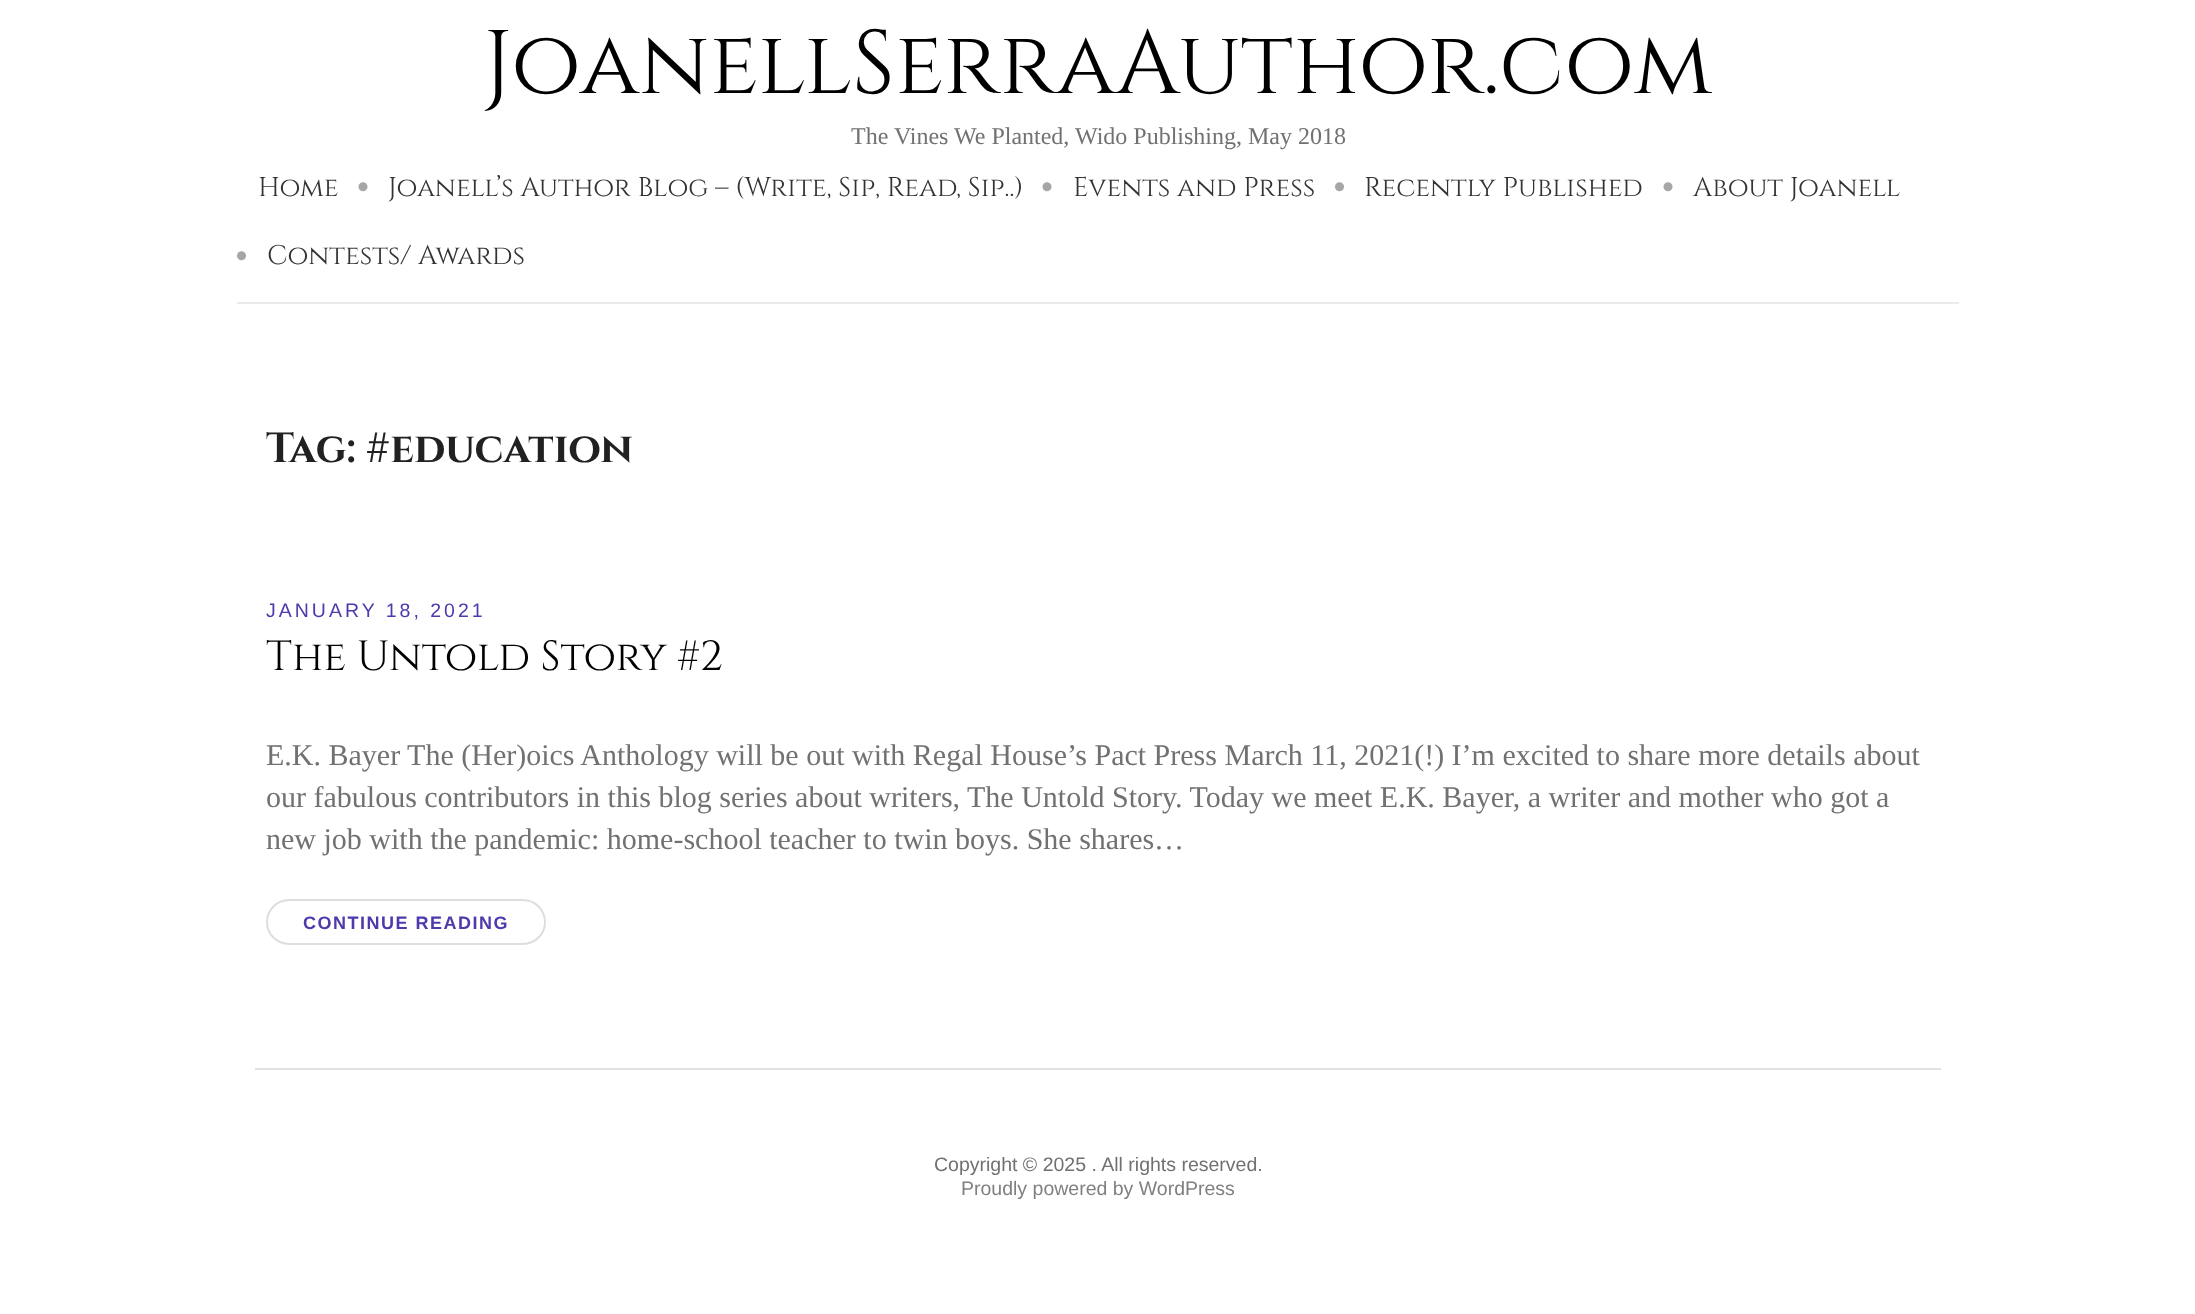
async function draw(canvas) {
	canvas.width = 2195;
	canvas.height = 1314;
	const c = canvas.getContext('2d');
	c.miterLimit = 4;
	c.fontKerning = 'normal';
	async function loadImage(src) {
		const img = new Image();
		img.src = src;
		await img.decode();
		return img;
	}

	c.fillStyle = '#fff';
	c.fillRect(0, 0, 2195, 1314);
	c.font = '90px Cinzel';
	c.fillStyle = '#000';
	c.fillText('JoanellSerraAuthor.com', 483, 93);
	c.font = '24px Liberation Serif';
	c.fillStyle = '#717171';
	c.fillText('The Vines We Planted, Wido Publishing, May 2018', 851, 144);
	c.fillStyle = '#ebebeb';
	c.fillRect(237, 302, 1722, 2);
	c.font = '27px Cinzel';
	c.fillStyle = '#333';
	c.fillText('Home', 258, 196);
	c.drawImage(await loadImage('img1.png'), 358, 182, 10, 10);
	c.fillText('Joanell’s Author Blog – (Write, Sip, Read, Sip..)', 388, 196);
	c.drawImage(await loadImage('img1.png'), 1042, 182, 10, 10);
	c.fillText('Events and Press', 1073, 196);
	c.drawImage(await loadImage('img2.png'), 1335, 182, 9, 10);
	c.fillText('Recently Published', 1364, 196);
	c.drawImage(await loadImage('img1.png'), 1663, 182, 10, 10);
	c.fillText('About Joanell', 1693, 196);
	c.drawImage(await loadImage('img2.png'), 237, 251, 9, 10);
	c.fillText('Contests/ Awards', 267, 264);
	c.font = 'bold 42px Cinzel';
	c.fillStyle = '#212121';
	c.fillText('Tag: #education', 266, 462);
	c.letterSpacing = '3px';
	c.font = '19.5px Liberation Sans';
	c.fillStyle = '#5039ac';
	c.fillText('JANUARY 18, 2021', 266, 617);
	c.letterSpacing = '0px';
	c.font = '42px Cinzel';
	c.fillStyle = '#000';
	c.fillText('The Untold Story #2', 266, 670);
	c.font = '30px Liberation Serif';
	c.fillStyle = '#717171';
	for (const [text, x, y] of [
		['E.K. Bayer The (Her)oics Anthology will be out with Regal House’s Pact Press March 11, 2021(!) I’m excited to share more details about', 266, 765],
		['our fabulous contributors in this blog series about writers, The Untold Story. Today we meet E.K. Bayer, a writer and mother who got a', 266, 807],
		['new job with the pandemic: home-school teacher to twin boys. She shares…', 266, 849],
	]) {
		c.fillText(text, x, y);
	}
	c.beginPath();
	c.roundRect(267, 900, 278, 44, 22);
	c.strokeStyle = '#dedede';
	c.lineWidth = 2;
	c.stroke();
	c.letterSpacing = '1.5px';
	c.font = 'bold 18px Liberation Sans';
	c.fillStyle = '#5039ac';
	c.fillText('CONTINUE READING', 303, 929);
	c.fillStyle = '#e2e2e2';
	c.fillRect(255, 1068, 1686, 2);
	c.letterSpacing = '0px';
	c.font = '19.5px Liberation Sans';
	c.fillStyle = '#717171';
	c.fillText('Copyright © 2025 . All rights reserved.', 934, 1171);
	c.fillStyle = '#808080';
	c.fillText('Proudly powered by WordPress', 961, 1195);
}

draw(document.querySelector('canvas'));
